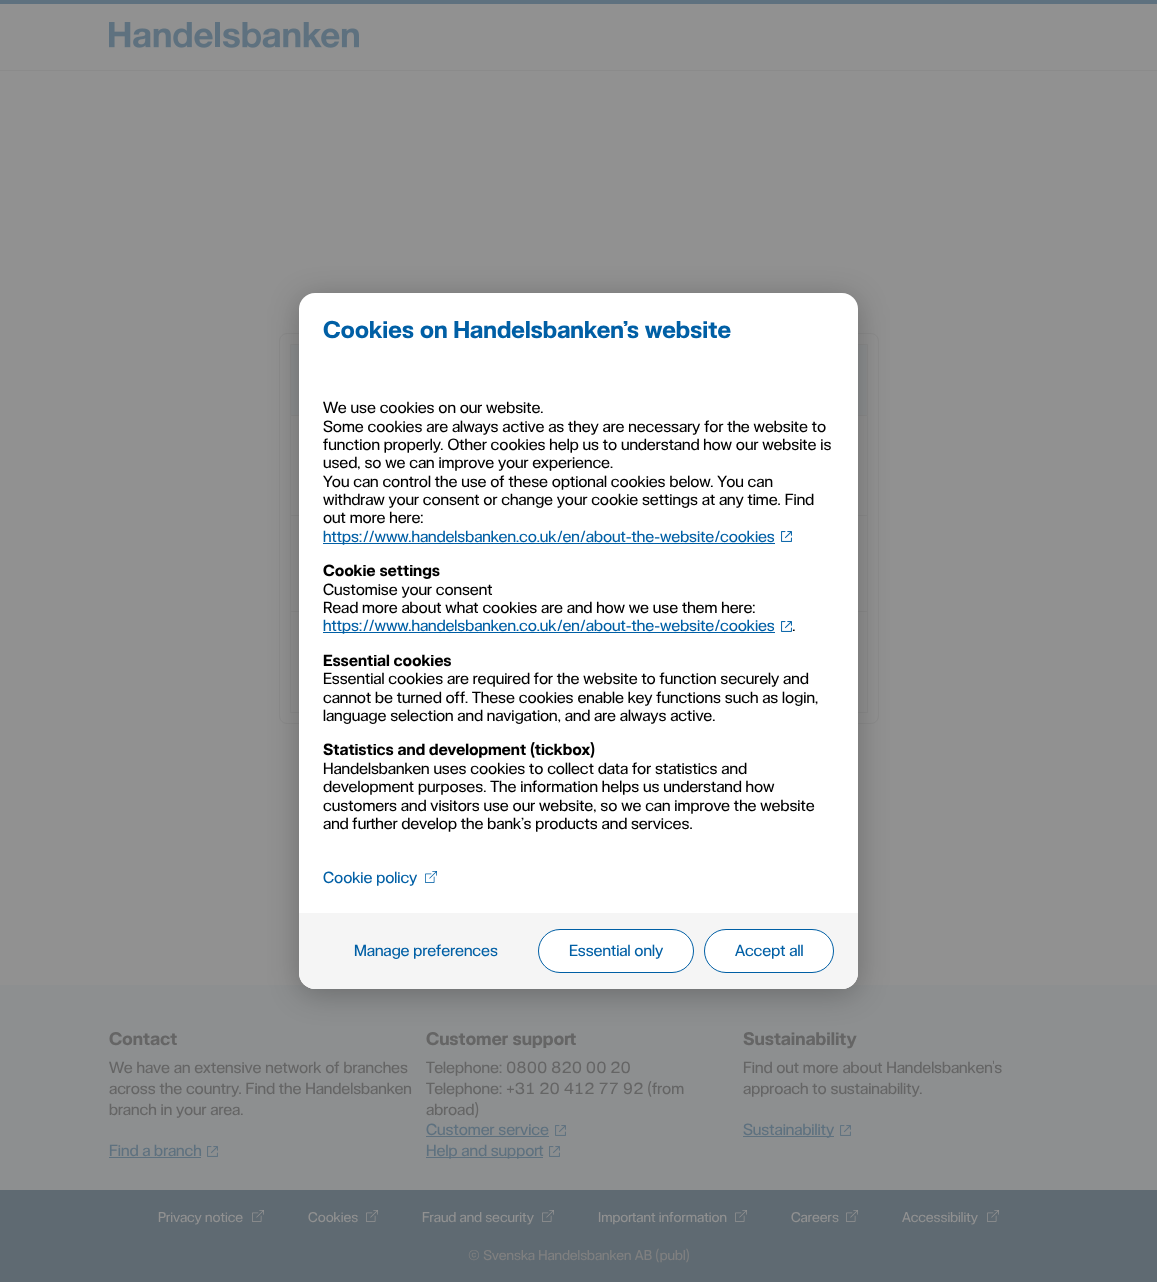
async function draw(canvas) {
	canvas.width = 1157;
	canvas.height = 1282;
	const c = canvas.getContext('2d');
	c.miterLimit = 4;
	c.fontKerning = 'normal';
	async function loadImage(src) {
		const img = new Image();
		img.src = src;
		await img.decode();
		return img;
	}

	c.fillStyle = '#919191';
	c.fillRect(0, 0, 1157, 1282);
	c.beginPath();
	c.roundRect(279.5, 333.5, 599, 390, 7.5);
	c.strokeStyle = '#8b8b8b';
	c.stroke();
	c.fillStyle = '#8d8f90';
	c.beginPath();
	c.rect(290.5, 344.5, 577, 71);
	c.fill();
	c.stroke();
	for (const [x, y, w, h, color] of [
		[867, 416, 1, 297, '#8b8b8b'],
		[290, 712, 578, 1, '#8b8b8b'],
		[290, 416, 1, 297, '#8b8b8b'],
		[291, 515, 576, 1, '#8b8b8b'],
		[291, 611, 576, 1, '#8b8b8b'],
		[0, 985, 1157, 205, '#8d8f90'],
	]) {
		c.fillStyle = color;
		c.fillRect(x, y, w, h);
	}
	c.fillStyle = '#00000040';
	c.filter = 'blur(15px)';
	c.beginPath();
	c.roundRect(299, 298, 559, 696, 16);
	c.fill();
	c.filter = 'none';
	c.fillStyle = '#fff';
	c.beginPath();
	c.roundRect(299, 293, 559, 696, 16);
	c.fill();
	c.font = 'bold 24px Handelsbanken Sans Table';
	c.fillStyle = '#005fa5';
	c.fillText('Cookies on Handelsbanken’s website', 323, 338);
	c.font = '16px Handelsbanken Sans Table';
	c.fillStyle = '#000';
	for (const [text, x, y] of [
		['We use cookies on our website.', 323, 413],
		['Some cookies are always active as they are necessary for the website to', 323, 432],
		['function properly. Other cookies help us to understand how our website is', 323, 450],
		['used, so we can improve your experience.', 323, 468],
		['You can control the use of these optional cookies below. You can', 323, 487],
		['withdraw your consent or change your cookie settings at any time. Find', 323, 505],
		['out more here:', 323, 523],
	]) {
		c.fillText(text, x, y);
	}
	c.fillStyle = '#005fa5';
	c.fillRect(323, 543, 452, 1);
	c.fillText('https://www.handelsbanken.co.uk/en/about-the-website/cookies', 323, 542);
	c.drawImage(await loadImage('img1.png'), 781, 531, 11, 11);
	c.font = 'bold 16px Handelsbanken Sans Table';
	c.fillStyle = '#000';
	c.fillText('Cookie settings', 323, 576);
	c.font = '16px Handelsbanken Sans Table';
	c.fillText('Customise your consent', 323, 595);
	c.fillText('Read more about what cookies are and how we use them here:', 323, 613);
	c.fillStyle = '#005fa5';
	c.fillRect(323, 632, 452, 1);
	c.fillText('https://www.handelsbanken.co.uk/en/about-the-website/cookies', 323, 631);
	c.drawImage(await loadImage('img1.png'), 781, 621, 11, 11);
	c.fillStyle = '#000';
	c.fillText('.', 792, 631);
	c.font = 'bold 16px Handelsbanken Sans Table';
	c.fillText('Essential cookies', 323, 666);
	c.font = '16px Handelsbanken Sans Table';
	for (const [text, x, y] of [
		['Essential cookies are required for the website to function securely and', 323, 684],
		['cannot be turned off. These cookies enable key functions such as login,', 323, 703],
		['language selection and navigation, and are always active.', 323, 721],
	]) {
		c.fillText(text, x, y);
	}
	c.font = 'bold 16px Handelsbanken Sans Table';
	c.fillText('Statistics and development (tickbox)', 323, 755);
	c.font = '16px Handelsbanken Sans Table';
	for (const [text, x, y] of [
		['Handelsbanken uses cookies to collect data for statistics and', 323, 774],
		['development purposes. The information helps us understand how', 323, 792],
		['customers and visitors use our website, so we can improve the website', 323, 811],
		['and further develop the bank’s products and services.', 323, 829],
	]) {
		c.fillText(text, x, y);
	}
	c.fillStyle = '#005fa5';
	c.fillText('Cookie policy', 323, 883);
	c.drawImage(await loadImage('img2.png'), 425, 871, 12, 12);
	c.fillStyle = '#f5f5f5';
	c.beginPath();
	c.roundRect(299, 913, 559, 76, [0, 0, 16, 16]);
	c.fill();
	c.fillStyle = '#005fa5';
	c.fillText('Manage preferences', 354, 956);
	c.fillStyle = '#fff';
	c.beginPath();
	c.roundRect(538.5, 929.5, 155, 43, 21.5);
	c.fill();
	c.strokeStyle = '#005fa5';
	c.stroke();
	c.fillStyle = '#005fa5';
	c.fillText('Essential only', 569, 956);
	c.fillStyle = '#fff';
	c.beginPath();
	c.roundRect(704.5, 929.5, 129, 43, 21.5);
	c.fill();
	c.stroke();
	c.fillStyle = '#005fa5';
	c.fillText('Accept all', 735, 956);
	c.fillStyle = '#5e717f';
	c.fillRect(0, 0, 1157, 4);
	c.fillStyle = '#8b8b8b';
	c.fillRect(0, 70, 1157, 1);
	c.drawImage(await loadImage('img3.png'), 109, 22, 250, 26);
	c.font = 'bold 18px Handelsbanken Sans Table';
	c.fillStyle = '#656565';
	c.fillText('Contact', 109, 1045);
	c.font = '16px Handelsbanken Sans Table';
	for (const [text, x, y] of [
		['We have an extensive network of branches', 109, 1073],
		['across the country. Find the Handelsbanken', 109, 1094],
		['branch in your area.', 109, 1115],
	]) {
		c.fillText(text, x, y);
	}
	c.fillStyle = '#5e717f';
	c.fillText('Find a branch', 109, 1156);
	c.fillRect(109, 1157, 92, 1);
	c.drawImage(await loadImage('img4.png'), 207, 1146, 11, 11);
	c.font = 'bold 18px Handelsbanken Sans Table';
	c.fillStyle = '#656565';
	c.fillText('Customer support', 426, 1045);
	c.font = '16px Handelsbanken Sans Table';
	for (const [text, x, y] of [
		['Telephone: 0800 820 00 20', 426, 1073],
		['Telephone: +31 20 412 77 92 (from', 426, 1094],
		['abroad)', 426, 1115],
	]) {
		c.fillText(text, x, y);
	}
	c.fillStyle = '#5e717f';
	c.fillText('Customer service', 426, 1135);
	c.fillRect(426, 1136, 123, 1);
	c.drawImage(await loadImage('img4.png'), 555, 1125, 11, 11);
	c.fillRect(426, 1157, 117, 1);
	c.fillText('Help and support', 426, 1156);
	c.drawImage(await loadImage('img4.png'), 549, 1146, 11, 11);
	c.font = 'bold 18px Handelsbanken Sans Table';
	c.fillStyle = '#656565';
	c.fillText('Sustainability', 743, 1045);
	c.font = '16px Handelsbanken Sans Table';
	c.fillText('Find out more about Handelsbanken\'s', 743, 1073);
	c.fillText('approach to sustainability.', 743, 1094);
	c.fillStyle = '#5e717f';
	c.fillRect(743, 1136, 91, 1);
	c.fillText('Sustainability', 743, 1135);
	c.drawImage(await loadImage('img4.png'), 840, 1125, 11, 11);
	c.fillStyle = '#5f6a72';
	c.fillRect(0, 1190, 1157, 92);
	c.font = '14px Handelsbanken Sans Table';
	c.fillStyle = '#919191';
	c.fillText('Privacy notice', 158, 1222);
	c.drawImage(await loadImage('img5.png'), 252, 1210, 12, 12);
	c.fillText('Cookies', 308, 1222);
	c.drawImage(await loadImage('img5.png'), 366, 1210, 12, 12);
	c.fillText('Fraud and security', 422, 1222);
	c.drawImage(await loadImage('img5.png'), 542, 1210, 12, 12);
	c.fillText('Important information', 598, 1222);
	c.drawImage(await loadImage('img5.png'), 735, 1210, 12, 12);
	c.fillText('Careers', 791, 1222);
	c.drawImage(await loadImage('img5.png'), 846, 1210, 12, 12);
	c.fillText('Accessibility', 902, 1222);
	c.drawImage(await loadImage('img5.png'), 987, 1210, 12, 12);
	c.fillStyle = '#808080';
	c.fillText('© Svenska Handelsbanken AB (publ)', 468, 1260);
}

draw(document.querySelector('canvas'));
